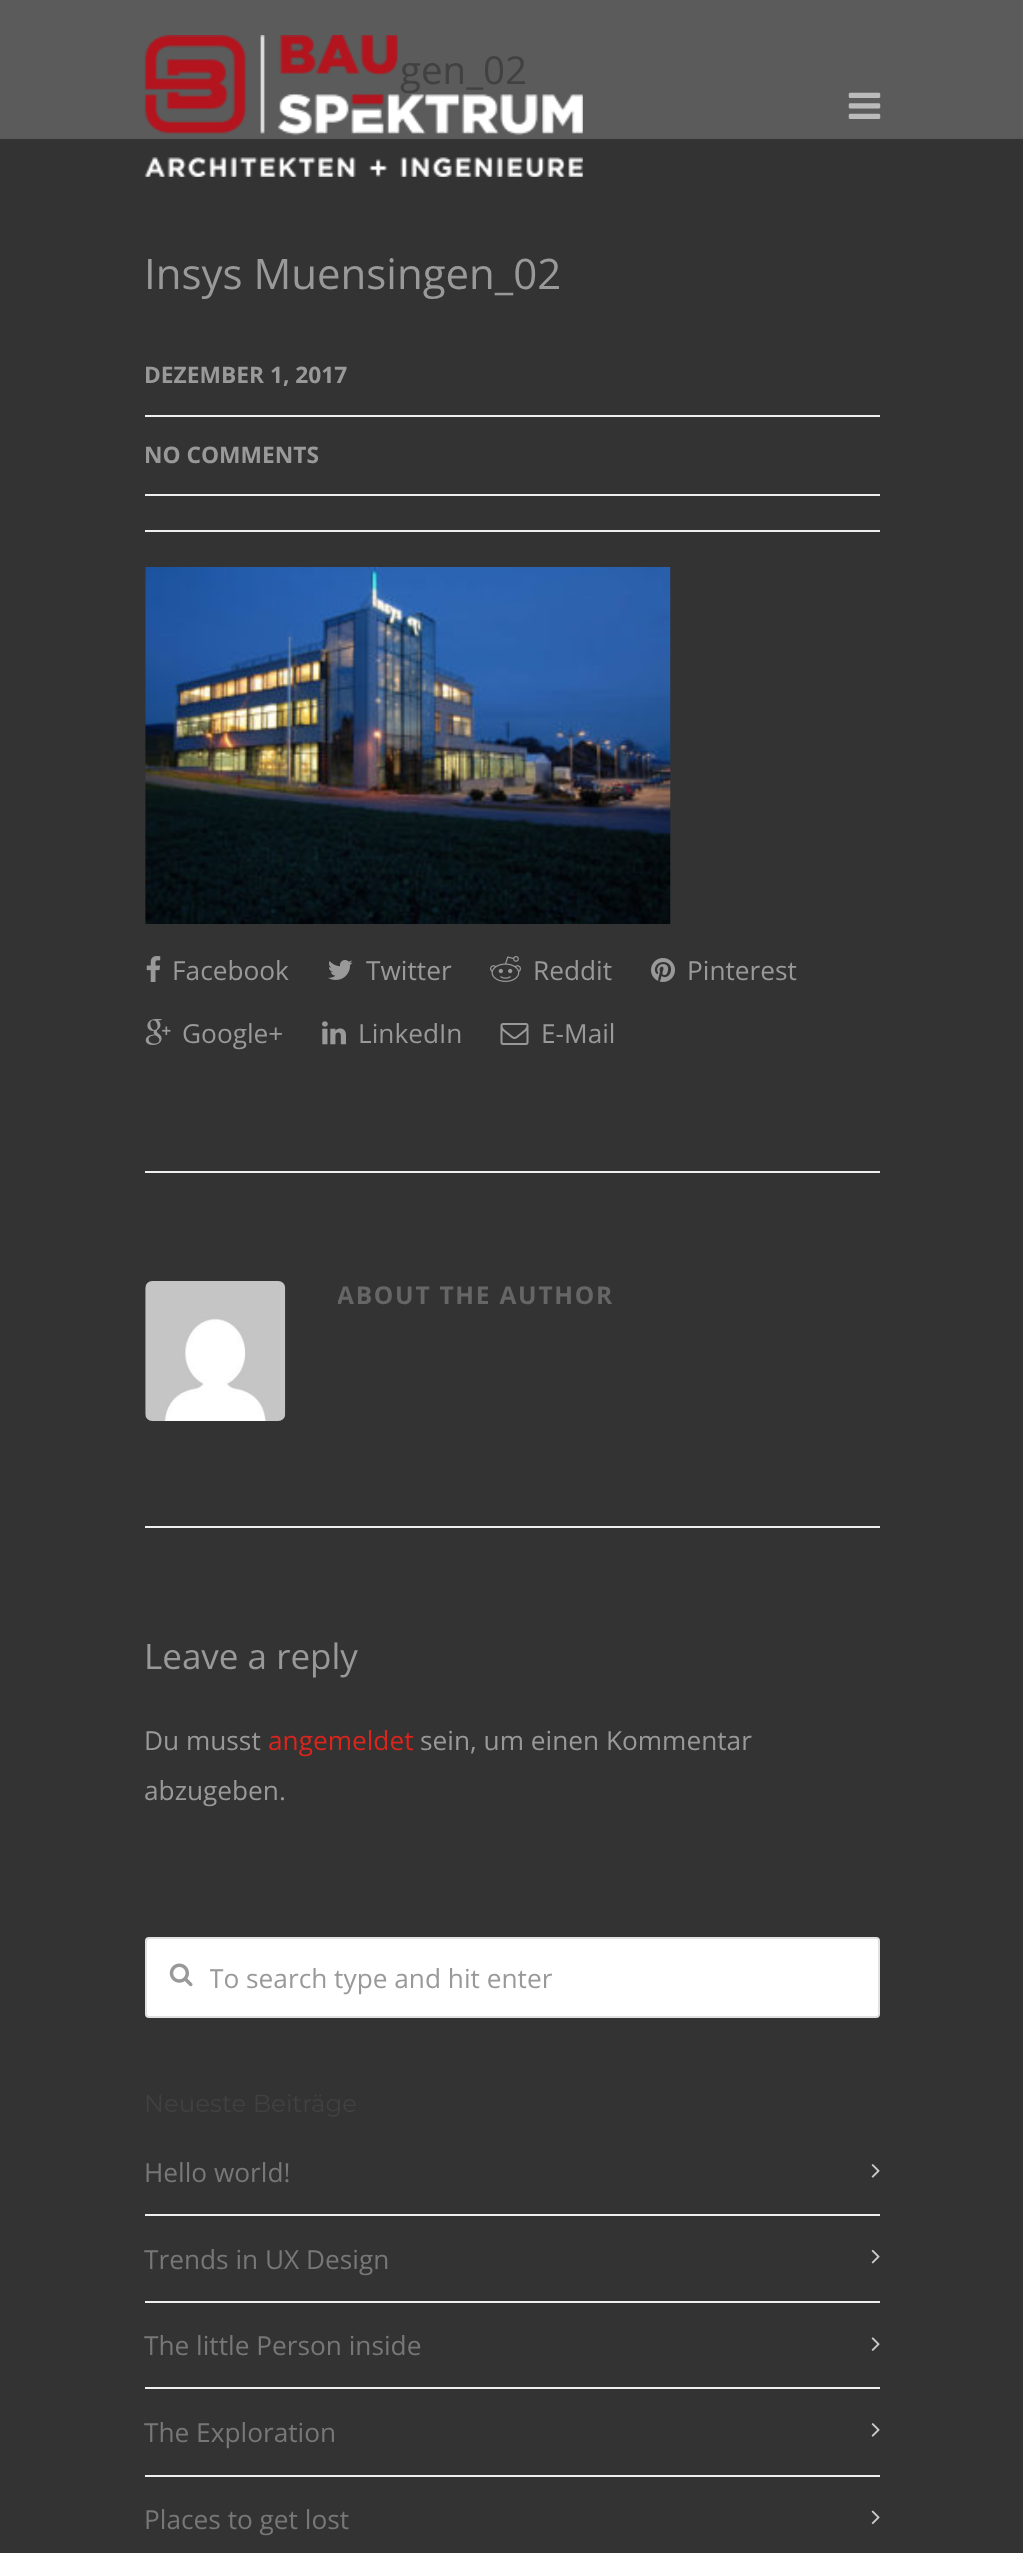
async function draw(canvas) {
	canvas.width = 1023;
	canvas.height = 2553;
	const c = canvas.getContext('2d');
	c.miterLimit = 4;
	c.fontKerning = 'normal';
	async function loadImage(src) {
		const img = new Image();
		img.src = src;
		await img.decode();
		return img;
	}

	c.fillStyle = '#333';
	c.fillRect(0, 0, 1023, 2553);
	c.fillStyle = '#5b5b5b';
	c.fillRect(0, 0, 1023, 137);
	c.fillStyle = '#595959';
	c.fillRect(0, 137, 1023, 2);
	c.font = '38.5px Open Sans';
	c.fillStyle = '#414141';
	c.fillText('gen_02', 400, 84);
	c.drawImage(await loadImage('img1.png'), 144, 35, 439, 142);
	c.drawImage(await loadImage('img2.png'), 848, 92, 33, 27);
	c.font = '42px Open Sans';
	c.fillStyle = '#999';
	c.fillText('Insys Muensingen_02', 144, 289);
	c.fillStyle = '#efefef';
	c.fillRect(145, 415, 735, 2);
	c.font = 'bold 22.75px Open Sans';
	c.fillStyle = '#999';
	c.fillText('DEZEMBER 1, 2017', 144, 383);
	c.fillStyle = '#efefef';
	c.fillRect(145, 494, 735, 2);
	c.fillStyle = '#999';
	c.fillText('NO COMMENTS', 144, 463);
	c.fillStyle = '#efefef';
	c.fillRect(145, 530, 735, 2);
	c.drawImage(await loadImage('img3.png'), 145, 567, 526, 357);
	c.drawImage(await loadImage('img4.png'), 146, 956, 15, 26);
	c.font = '26.25px Open Sans';
	c.fillStyle = '#999';
	c.fillText('Facebook', 172, 980);
	c.drawImage(await loadImage('img5.png'), 328, 960, 25, 20);
	c.fillText('Twitter', 366, 980);
	c.drawImage(await loadImage('img6.png'), 490, 956, 31, 26);
	c.fillText('Reddit', 533, 980);
	c.drawImage(await loadImage('img7.png'), 651, 958, 24, 24);
	c.fillText('Pinterest', 687, 980);
	c.drawImage(await loadImage('img8.png'), 145, 1019, 26, 26);
	c.fillText('Google+', 182, 1043);
	c.drawImage(await loadImage('img9.png'), 322, 1021, 24, 24);
	c.fillText('LinkedIn', 358, 1043);
	c.drawImage(await loadImage('img10.png'), 500, 1023, 29, 22);
	c.fillText('E-Mail', 541, 1043);
	c.fillStyle = '#efefef';
	c.fillRect(145, 1171, 735, 2);
	c.drawImage(await loadImage('img11.png'), 145, 1281, 141, 140);
	c.save();
	c.beginPath();
	c.rect(338, 1278, 542, 50);
	c.clip();
	c.letterSpacing = '1.75px';
	c.font = 'bold 24.5px Open Sans';
	c.fillStyle = '#666';
	c.fillText('ABOUT THE AUTHOR', 337, 1304);
	c.restore();
	c.fillRect(145, 1526, 735, 2);
	c.font = '35px Open Sans';
	c.fillStyle = '#999';
	c.fillText('Leave a reply', 144, 1669);
	c.font = '26.25px Open Sans';
	c.fillText('Du musst', 144, 1750);
	c.fillStyle = '#da251c';
	c.fillText('angemeldet', 268, 1750);
	c.fillStyle = '#999';
	c.fillText('sein, um einen Kommentar', 420, 1750);
	c.fillText('abzugeben.', 144, 1800);
	c.fillStyle = '#fff';
	c.beginPath();
	c.roundRect(146, 1938, 733, 79, 3);
	c.fill();
	c.strokeStyle = '#e1e1e1';
	c.lineWidth = 2;
	c.stroke();
	c.drawImage(await loadImage('img12.png'), 169, 1963, 24, 24);
	c.save();
	c.beginPath();
	c.rect(210, 1957, 648, 42);
	c.clip();
	c.fillStyle = '#999';
	c.fillText('To search type and hit enter', 209, 1988);
	c.restore();
	c.font = '24.5px Montserrat';
	c.fillStyle = '#414141';
	c.fillText('Neueste Beiträge', 144, 2112);
	c.fillStyle = '#efefef';
	c.fillRect(145, 2214, 735, 2);
	c.font = '26.25px Open Sans';
	c.fillStyle = '#777';
	c.fillText('Hello world!', 144, 2182);
	c.drawImage(await loadImage('img13.png'), 871, 2164, 9, 14);
	c.fillStyle = '#efefef';
	c.fillRect(145, 2301, 735, 2);
	c.fillStyle = '#777';
	c.fillText('Trends in UX Design', 144, 2269);
	c.drawImage(await loadImage('img14.png'), 871, 2249, 9, 15);
	c.fillStyle = '#efefef';
	c.fillRect(145, 2387, 735, 2);
	c.fillStyle = '#777';
	c.fillText('The little Person inside', 144, 2355);
	c.drawImage(await loadImage('img15.png'), 871, 2337, 9, 14);
	c.fillStyle = '#efefef';
	c.fillRect(145, 2475, 735, 2);
	c.fillStyle = '#777';
	c.fillText('The Exploration', 144, 2442);
	c.drawImage(await loadImage('img13.png'), 871, 2423, 9, 14);
	c.fillText('Places to get lost', 144, 2529);
	c.drawImage(await loadImage('img16.png'), 871, 2510, 9, 15);
}

draw(document.querySelector('canvas'));
